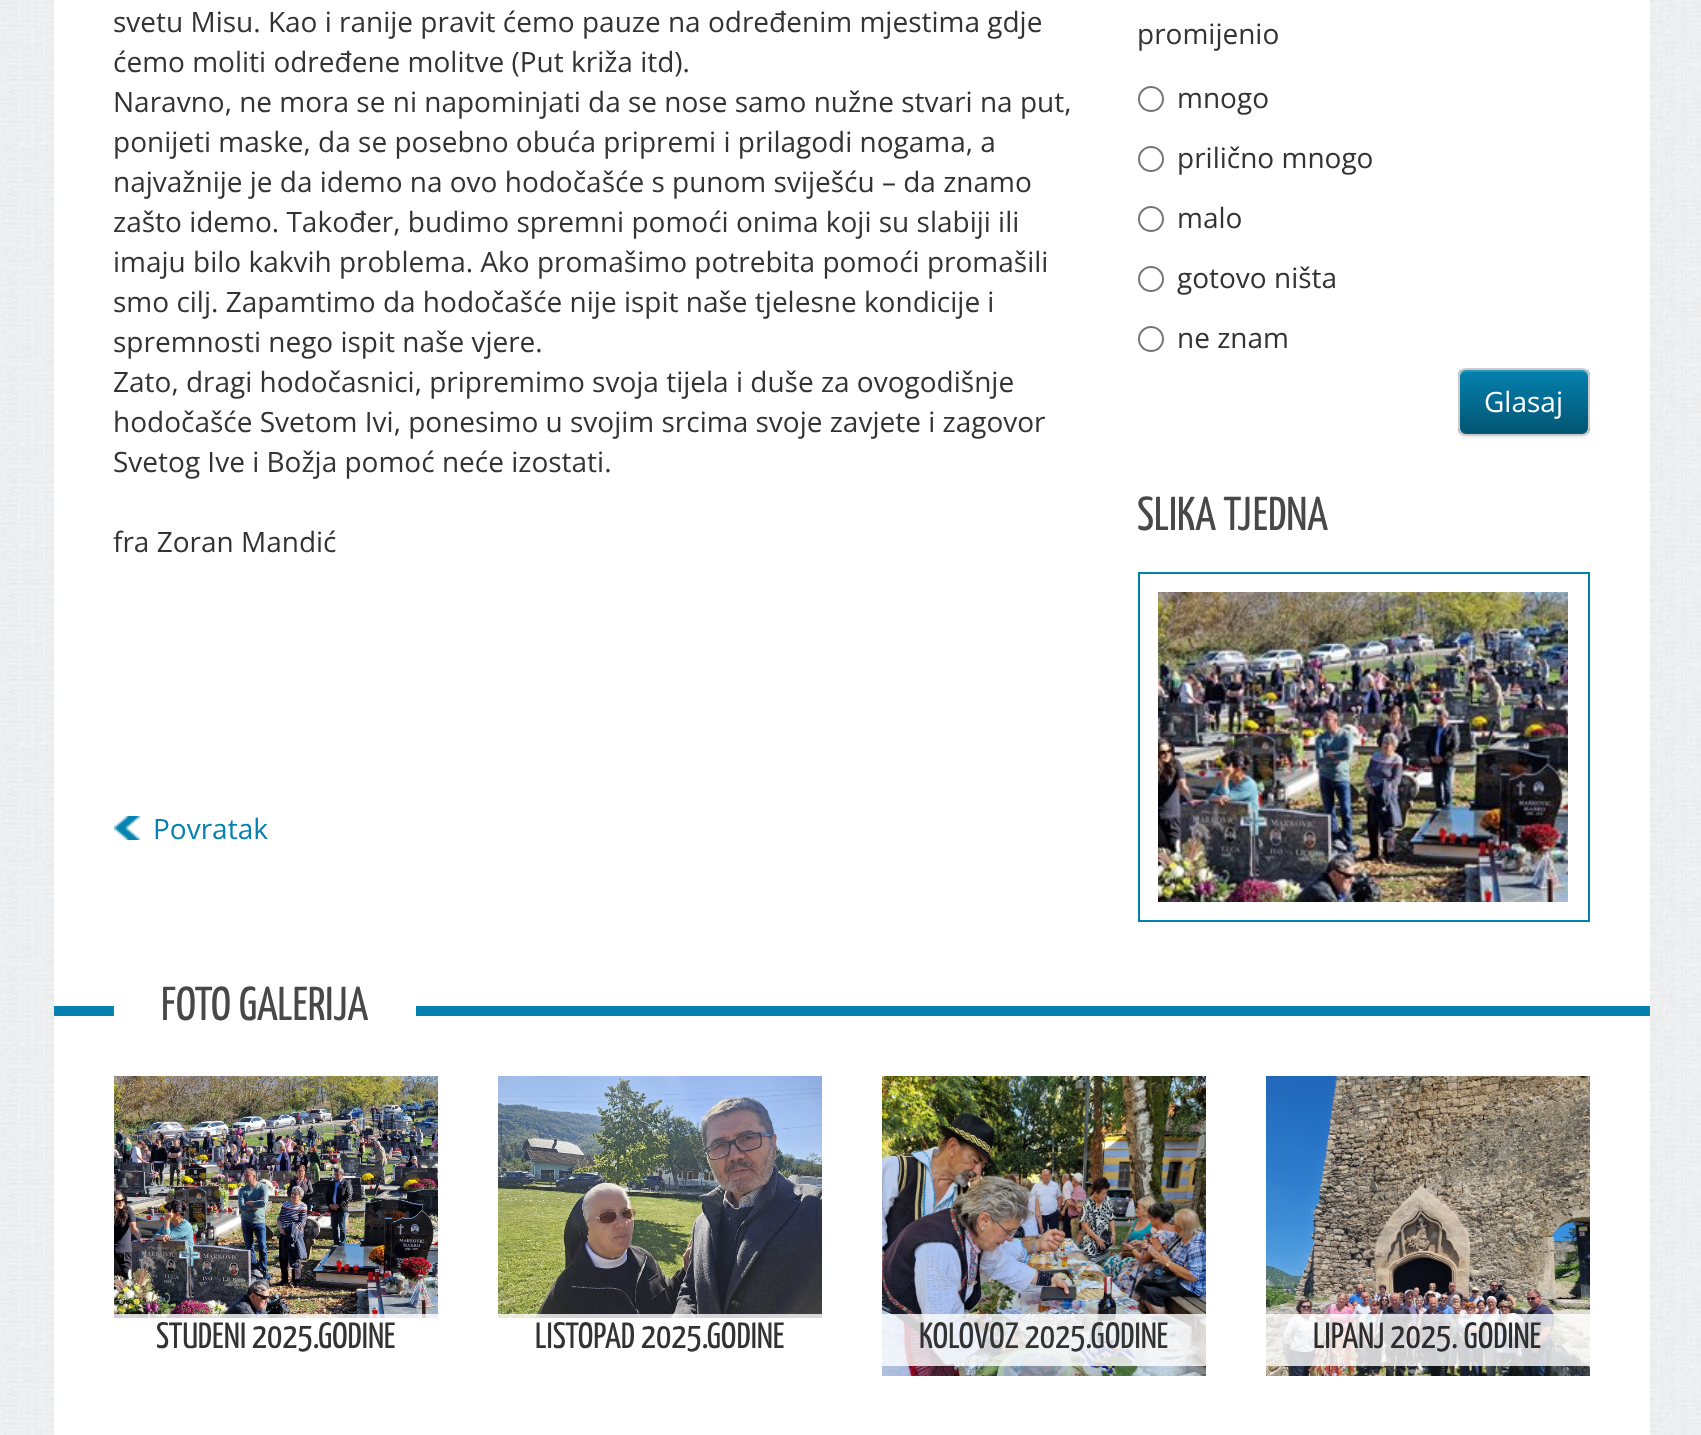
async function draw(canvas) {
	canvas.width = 1701;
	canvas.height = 1435;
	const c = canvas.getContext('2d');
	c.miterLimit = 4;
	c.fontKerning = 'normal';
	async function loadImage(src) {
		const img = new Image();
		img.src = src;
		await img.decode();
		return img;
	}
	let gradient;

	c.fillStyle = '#fff';
	c.fillRect(0, 0, 1701, 1435);
	c.drawImage(await loadImage('img1.png'), 0, 0, 1701, 1435);
	c.fillRect(54, 0, 1596, 1435);
	c.font = '28px Open Sans';
	c.fillStyle = '#333';
	for (const [text, x, y] of [
		['svetu Misu. Kao i ranije pravit ćemo pauze na određenim mjestima gdje', 113, 32],
		['ćemo moliti određene molitve (Put križa itd).', 113, 72],
		['Naravno, ne mora se ni napominjati da se nose samo nužne stvari na put,', 113, 112],
		['ponijeti maske, da se posebno obuća pripremi i prilagodi nogama, a', 113, 152],
		['najvažnije je da idemo na ovo hodočašće s punom sviješću – da znamo', 113, 192],
		['zašto idemo. Također, budimo spremni pomoći onima koji su slabiji ili', 113, 232],
		['imaju bilo kakvih problema. Ako promašimo potrebita pomoći promašili', 113, 272],
		['smo cilj. Zapamtimo da hodočašće nije ispit naše tjelesne kondicije i', 113, 312],
		['spremnosti nego ispit naše vjere.', 113, 352],
		['Zato, dragi hodočasnici, pripremimo svoja tijela i duše za ovogodišnje', 113, 392],
		['hodočašće Svetom Ivi, ponesimo u svojim srcima svoje zavjete i zagovor', 113, 432],
		['Svetog Ive i Božja pomoć neće izostati.', 113, 472],
		['fra Zoran Mandić', 113, 552],
	]) {
		c.fillText(text, x, y);
	}
	c.drawImage(await loadImage('img2.png'), 114, 816, 26, 24);
	c.fillStyle = '#0481af';
	c.fillText('Povratak', 153, 839);
	c.fillStyle = '#333';
	c.fillText('promijenio', 1137, 44);
	c.beginPath();
	c.arc(1151, 99, 12, 0, 2 * Math.PI);
	c.strokeStyle = '#767676';
	c.lineWidth = 2;
	c.stroke();
	c.fillText('mnogo', 1177, 108);
	c.beginPath();
	c.arc(1151, 159, 12, 0, 2 * Math.PI);
	c.stroke();
	c.fillText('prilično mnogo', 1177, 168);
	c.beginPath();
	c.arc(1151, 219, 12, 0, 2 * Math.PI);
	c.stroke();
	c.fillText('malo', 1177, 228);
	c.beginPath();
	c.arc(1151, 279, 12, 0, 2 * Math.PI);
	c.stroke();
	c.fillText('gotovo ništa', 1177, 288);
	c.beginPath();
	c.arc(1151, 339, 12, 0, 2 * Math.PI);
	c.stroke();
	c.fillText('ne znam', 1177, 348);
	c.fillStyle = '#00000012';
	c.filter = 'blur(1px)';
	c.beginPath();
	c.roundRect(1458, 370, 132, 68, 8);
	c.fill();
	c.filter = 'none';
	c.save();
	c.beginPath();
	c.roundRect(1458, 368, 132, 68, 8);
	c.clip();
	gradient = c.createLinearGradient(1524, 370, 1524, 434);
	gradient.addColorStop(0, '#0481af');
	gradient.addColorStop(1, '#035573');
	c.fillStyle = gradient;
	c.fillRect(1458, 370, 132, 64);
	c.restore();
	c.fillStyle = '#ffffff26';
	c.beginPath();
	c.moveTo(1466, 372);
	c.lineTo(1582, 372);
	c.bezierCurveTo(1585, 372, 1588, 375, 1588, 378);
	c.lineTo(1588, 376);
	c.bezierCurveTo(1588, 373, 1585, 370, 1582, 370);
	c.lineTo(1466, 370);
	c.bezierCurveTo(1463, 370, 1460, 373, 1460, 376);
	c.lineTo(1460, 378);
	c.bezierCurveTo(1460, 375, 1463, 372, 1466, 372);
	c.closePath();
	c.fill();
	c.beginPath();
	c.roundRect(1459, 369, 130, 66, 7);
	c.strokeStyle = '#ccc';
	c.stroke();
	c.fillStyle = '#fff';
	c.fillText('Glasaj', 1484, 412);
	c.font = '47.5px Yanone Kaffeesatz';
	c.fillStyle = '#484848';
	c.fillText('SLIKA TJEDNA', 1137, 530);
	c.strokeStyle = '#0481af';
	c.strokeRect(1139, 573, 450, 348);
	c.drawImage(await loadImage('img3.png'), 1158, 592, 410, 310);
	c.fillStyle = '#0481af';
	c.fillRect(54, 1006, 1596, 10);
	c.fillStyle = '#fff';
	c.fillRect(114, 1006, 302, 10);
	c.fillStyle = '#484848';
	c.fillText('FOTO GALERIJA', 161, 1020);
	c.drawImage(await loadImage('img4.png'), 114, 1076, 324, 242);
	c.fillStyle = '#ffffffcc';
	c.fillRect(114, 1314, 324, 4);
	c.font = '36.5px Yanone Kaffeesatz';
	c.fillStyle = '#333';
	c.fillText('STUDENI 2025.GODINE', 156, 1348);
	c.drawImage(await loadImage('img5.png'), 498, 1076, 324, 242);
	c.fillStyle = '#ffffffcc';
	c.fillRect(498, 1314, 324, 4);
	c.fillStyle = '#333';
	c.fillText('LISTOPAD 2025.GODINE', 535, 1348);
	c.drawImage(await loadImage('img6.png'), 882, 1076, 324, 300);
	c.fillStyle = '#ffffffcc';
	c.fillRect(882, 1314, 324, 52);
	c.fillStyle = '#333';
	c.fillText('KOLOVOZ 2025.GODINE', 919, 1348);
	c.drawImage(await loadImage('img7.png'), 1266, 1076, 324, 300);
	c.fillStyle = '#ffffffcc';
	c.fillRect(1266, 1314, 324, 52);
	c.fillStyle = '#2e2d2e';
	c.fillText('LIPANJ 2025. GODINE', 1313, 1348);
}

draw(document.querySelector('canvas'));
